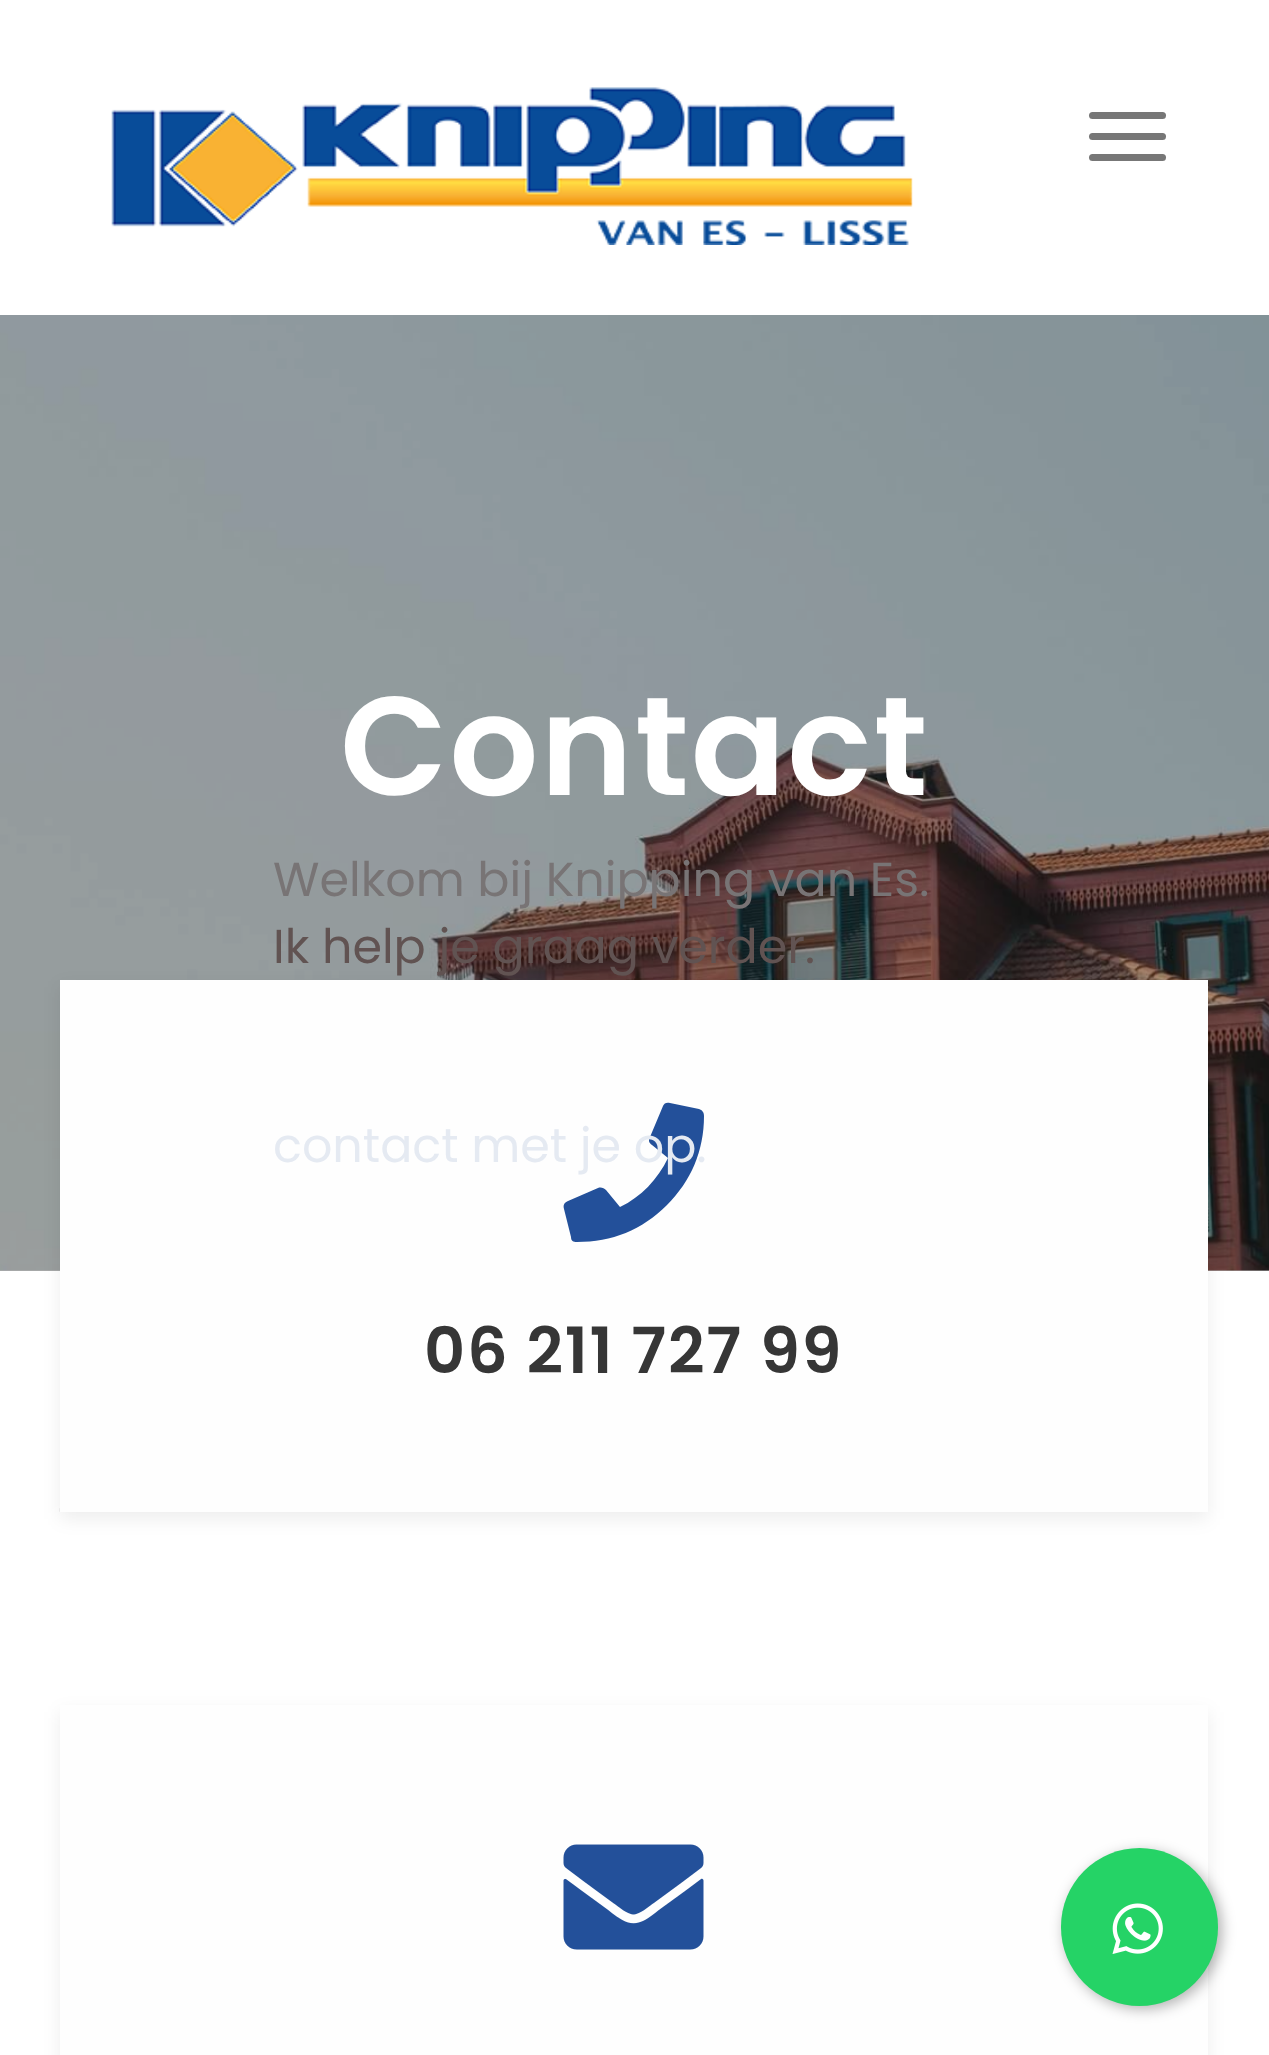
async function draw(canvas) {
	canvas.width = 1269;
	canvas.height = 2055;
	const c = canvas.getContext('2d');
	c.miterLimit = 4;
	c.fontKerning = 'normal';
	async function loadImage(src) {
		const img = new Image();
		img.src = src;
		await img.decode();
		return img;
	}

	c.fillStyle = '#fff';
	c.fillRect(0, 0, 1269, 2055);
	c.fillStyle = '#b3b3b3';
	c.fillRect(0, 1270, 1269, 1);
	c.drawImage(await loadImage('img1.png'), 111, 87, 802, 158);
	c.fillStyle = '#777';
	c.beginPath();
	c.roundRect(1089, 112, 77, 7, 3.5);
	c.fill();
	c.beginPath();
	c.roundRect(1089, 133, 77, 7, 3.5);
	c.fill();
	c.beginPath();
	c.roundRect(1089, 154, 77, 7, 3.5);
	c.fill();
	c.drawImage(await loadImage('img2.png'), 0, 315, 1269, 956);
	c.letterSpacing = '1.75px';
	c.font = '600 140px Poppins';
	c.fillStyle = '#fff';
	c.fillText('Contact', 340, 795);
	c.beginPath();
	c.moveTo(59.5, 1510);
	c.lineTo(1207.5, 1510);
	c.strokeStyle = '#e5e5e5';
	c.lineWidth = 3.5;
	c.setLineDash([10.5, 7]);
	c.stroke();
	c.fillStyle = '#00000012';
	c.filter = 'blur(9px)';
	c.beginPath();
	c.rect(60, 987, 1148, 532);
	c.fill();
	c.filter = 'none';
	c.fillStyle = '#fefefe';
	c.fillRect(60, 980, 1148, 532);
	c.fillStyle = '#23509a';
	c.beginPath();
	c.moveTo(699, 1109);
	c.bezierCurveTo(702, 1110, 704, 1112, 704, 1116);
	c.bezierCurveTo(704, 1151, 691, 1181, 667, 1205);
	c.bezierCurveTo(642, 1230, 612, 1242, 577, 1242);
	c.bezierCurveTo(573, 1242, 571, 1241, 571, 1237);
	c.lineTo(564, 1209);
	c.bezierCurveTo(563, 1205, 564, 1203, 568, 1201);
	c.lineTo(598, 1188);
	c.bezierCurveTo(601, 1187, 604, 1188, 606, 1190);
	c.lineTo(620, 1207);
	c.bezierCurveTo(641, 1197, 658, 1179, 668, 1158);
	c.lineTo(652, 1145);
	c.bezierCurveTo(649, 1143, 648, 1140, 650, 1137);
	c.lineTo(663, 1106);
	c.bezierCurveTo(664, 1103, 667, 1102, 670, 1103);
	c.closePath();
	c.fill();
	c.font = '600 63.75px Poppins';
	c.fillStyle = '#363636';
	c.fillText('06 211 727 99', 424, 1373);
	c.fillStyle = '#00000012';
	c.filter = 'blur(9px)';
	c.beginPath();
	c.rect(60, 1712, 1148, 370);
	c.fill();
	c.filter = 'none';
	c.fillStyle = '#fefefe';
	c.fillRect(60, 1705, 1148, 350);
	c.drawImage(await loadImage('img3.png'), 563, 1844, 141, 106);
	c.letterSpacing = '0px';
	c.font = '47.6px Poppins';
	c.fillStyle = '#787475';
	c.fillText('Welkom bij Knipping van Es.', 273, 896);
	c.fillStyle = '#615352';
	c.fillText('Ik help je graag verder.', 273, 963);
	c.fillStyle = '#e5eaf2';
	c.fillText('contact met je op.', 273, 1162);
	c.fillStyle = '#0000004d';
	c.filter = 'blur(7px)';
	c.beginPath();
	c.roundRect(1064, 1852, 158, 157, 78.5);
	c.fill();
	c.filter = 'none';
	c.fillStyle = '#25d366';
	c.beginPath();
	c.roundRect(1061, 1848, 157, 158, 78.5);
	c.fill();
	c.drawImage(await loadImage('img4.png'), 1112, 1903, 51, 51);
}

draw(document.querySelector('canvas'));
